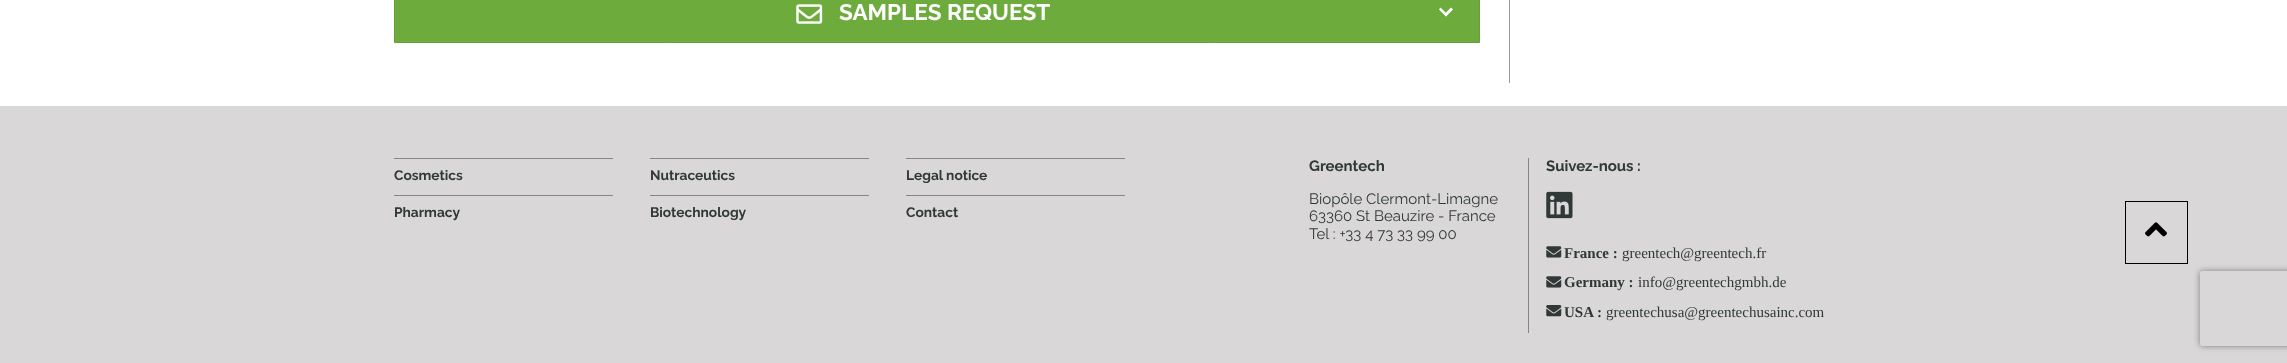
async function draw(canvas) {
	canvas.width = 2287;
	canvas.height = 363;
	const c = canvas.getContext('2d');
	c.miterLimit = 4;
	c.fontKerning = 'normal';
	async function loadImage(src) {
		const img = new Image();
		img.src = src;
		await img.decode();
		return img;
	}

	c.fillStyle = '#fff';
	c.fillRect(0, 0, 2287, 363);
	c.fillStyle = '#989c9c';
	c.fillRect(1509, 0, 1, 83);
	c.fillStyle = '#6dab3c';
	c.beginPath();
	c.rect(394.5, -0.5, 1085, 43);
	c.fill();
	c.strokeStyle = '#66a038';
	c.stroke();
	c.drawImage(await loadImage('img1.png'), 796, 4, 27, 20);
	c.font = 'bold 22.5px Raleway';
	c.fillStyle = '#fff';
	c.fillText('SAMPLES REQUEST', 839, 20);
	c.beginPath();
	c.moveTo(1451, 7.5);
	c.lineTo(1453, 9.5);
	c.lineTo(1446, 16.5);
	c.lineTo(1444, 14.5);
	c.closePath();
	c.fill();
	c.beginPath();
	c.moveTo(1440.5, 7.5);
	c.lineTo(1447.5, 14.5);
	c.lineTo(1446, 16.5);
	c.lineTo(1439, 9.5);
	c.closePath();
	c.fill();
	c.fillStyle = '#d9d7d7';
	c.fillRect(0, 106, 2287, 257);
	c.fillStyle = '#858787';
	c.fillRect(394, 158, 219, 1);
	c.font = 'bold 13.75px Raleway';
	c.fillStyle = '#313838';
	c.fillText('Cosmetics', 394, 180);
	c.fillStyle = '#858787';
	c.fillRect(394, 195, 219, 1);
	c.fillStyle = '#313838';
	c.fillText('Pharmacy', 394, 217);
	c.fillStyle = '#858787';
	c.fillRect(650, 158, 219, 1);
	c.fillStyle = '#313838';
	c.fillText('Nutraceutics', 650, 180);
	c.fillStyle = '#858787';
	c.fillRect(650, 195, 219, 1);
	c.fillStyle = '#313838';
	c.fillText('Biotechnology', 650, 217);
	c.fillStyle = '#858787';
	c.fillRect(906, 158, 219, 1);
	c.fillStyle = '#313838';
	c.fillText('Legal notice', 906, 180);
	c.fillStyle = '#858787';
	c.fillRect(906, 195, 219, 1);
	c.fillStyle = '#313838';
	c.fillText('Contact', 906, 217);
	c.font = 'bold 15px Raleway';
	c.fillText('Greentech', 1309, 171);
	c.font = '15px Raleway';
	for (const [text, x, y] of [
		['Biopôle Clermont-Limagne', 1309, 204],
		['63360 St Beauzire - France', 1309, 221],
		['Tel : +33 4 73 33 99 00', 1309, 239],
	]) {
		c.fillText(text, x, y);
	}
	c.fillStyle = '#858787';
	c.fillRect(1528, 158, 1, 175);
	c.font = 'bold 15px Raleway';
	c.fillStyle = '#313838';
	c.fillText('Suivez-nous :', 1546, 171);
	c.drawImage(await loadImage('img2.png'), 1546, 191, 27, 28);
	c.drawImage(await loadImage('img3.png'), 1546, 246, 16, 12);
	c.font = 'bold 15px Liberation Serif';
	c.fillText('France :', 1564, 258);
	c.font = '15px Liberation Serif';
	c.fillText('greentech@greentech.fr', 1622, 258);
	c.drawImage(await loadImage('img3.png'), 1546, 276, 16, 12);
	c.font = 'bold 15px Liberation Serif';
	c.fillText('Germany :', 1564, 287);
	c.font = '15px Liberation Serif';
	c.fillText('info@greentechgmbh.de', 1638, 287);
	c.drawImage(await loadImage('img4.png'), 1546, 305, 16, 12);
	c.font = 'bold 15px Liberation Serif';
	c.fillText('USA :', 1564, 317);
	c.font = '15px Liberation Serif';
	c.fillText('greentechusa@greentechusainc.com', 1606, 317);
	c.strokeStyle = '#000';
	c.strokeRect(2125.5, 201.5, 62, 62);
	c.drawImage(await loadImage('img5.png'), 2145, 222, 22, 15);
	c.save();
	c.beginPath();
	c.moveTo(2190, 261);
	c.lineTo(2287, 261);
	c.lineTo(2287, 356);
	c.lineTo(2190, 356);
	c.closePath();
	c.moveTo(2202.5, 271);
	c.lineTo(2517.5, 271);
	c.bezierCurveTo(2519, 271, 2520, 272, 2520, 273.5);
	c.lineTo(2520, 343.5);
	c.bezierCurveTo(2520, 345, 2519, 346, 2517.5, 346);
	c.lineTo(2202.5, 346);
	c.bezierCurveTo(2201, 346, 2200, 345, 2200, 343.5);
	c.lineTo(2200, 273.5);
	c.bezierCurveTo(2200, 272, 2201, 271, 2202.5, 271);
	c.closePath();
	c.clip('evenodd');
	c.fillStyle = '#808080';
	c.filter = 'blur(3px)';
	c.beginPath();
	c.roundRect(2200, 271, 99, 75, 2.5);
	c.fill();
	c.filter = 'none';
	c.restore();
}

draw(document.querySelector('canvas'));
